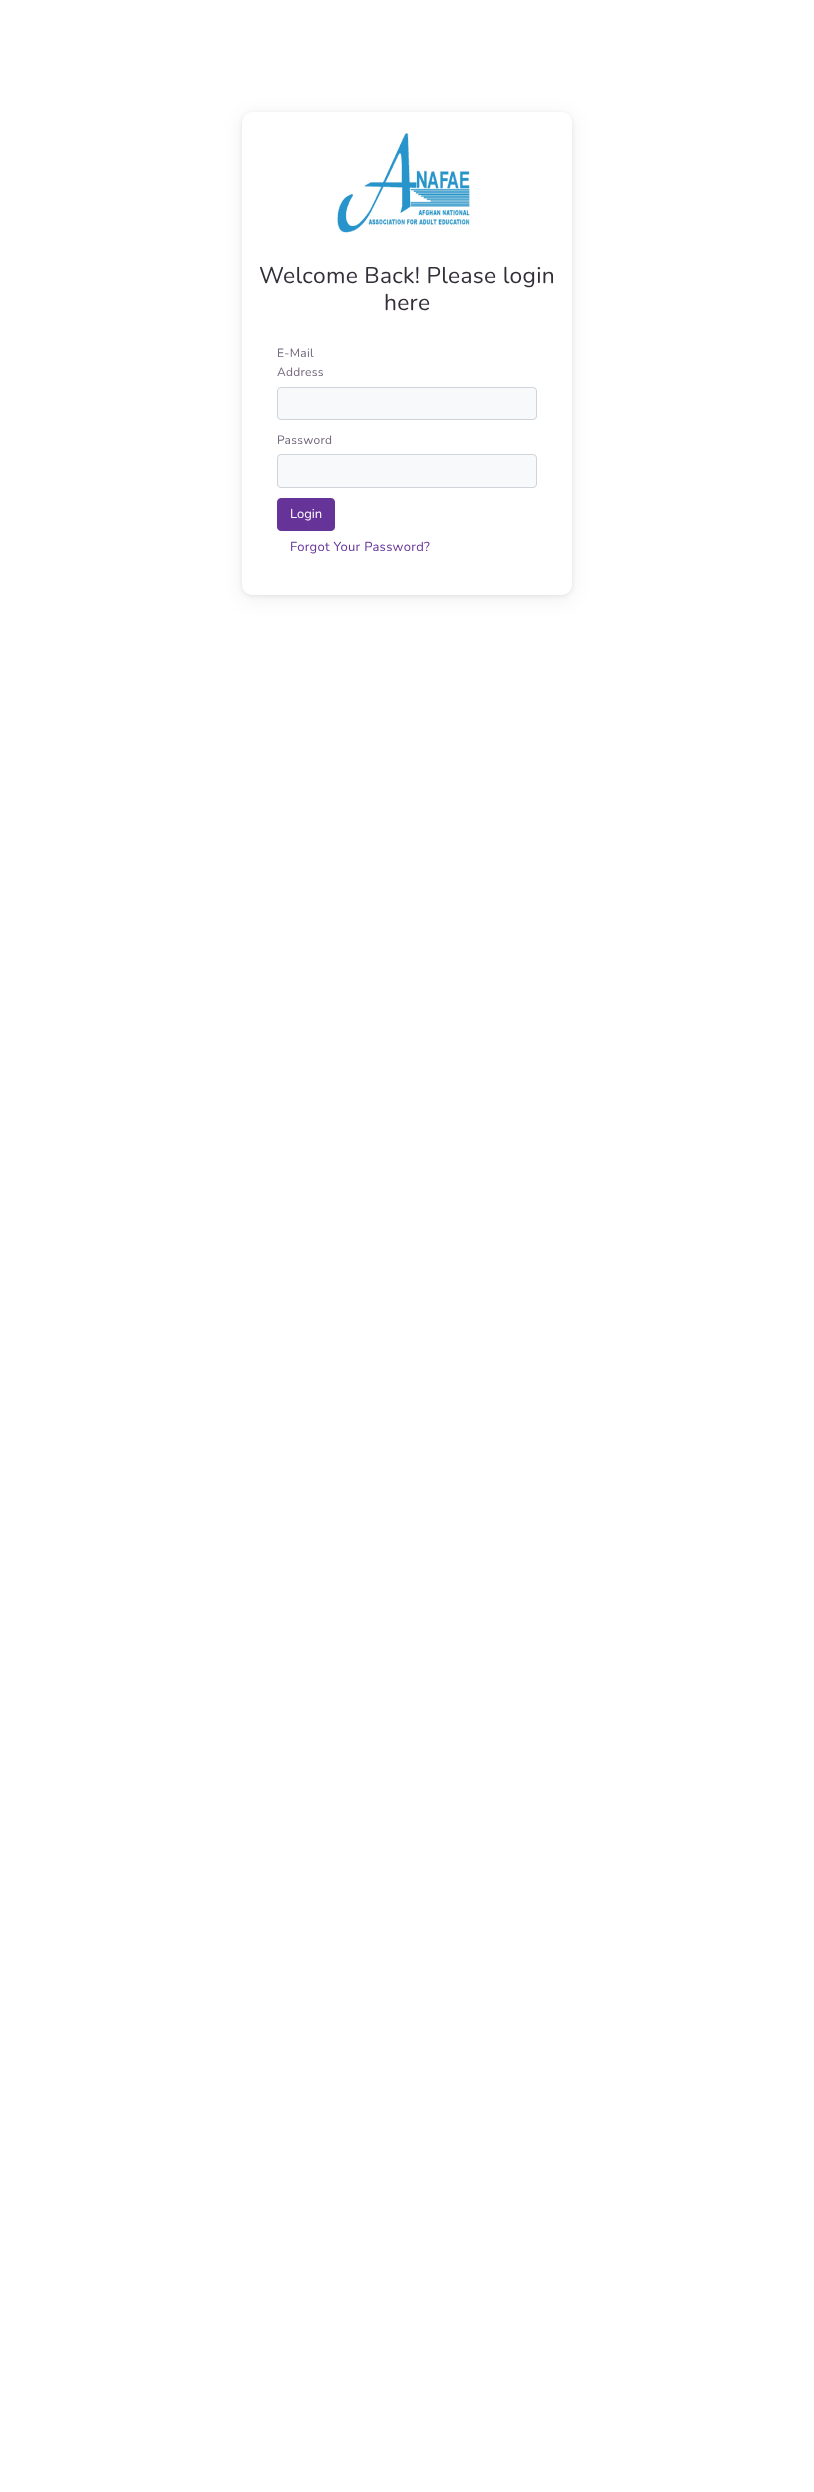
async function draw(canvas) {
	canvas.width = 814;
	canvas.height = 2492;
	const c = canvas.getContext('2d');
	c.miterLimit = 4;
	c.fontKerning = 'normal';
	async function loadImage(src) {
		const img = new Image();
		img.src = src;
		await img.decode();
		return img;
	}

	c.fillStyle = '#fff';
	c.fillRect(0, 0, 814, 2492);
	c.fillStyle = '#00000014';
	c.filter = 'blur(2px)';
	c.beginPath();
	c.roundRect(242, 113, 330, 483, 10);
	c.fill();
	c.filter = 'none';
	c.fillStyle = '#0000000f';
	c.filter = 'blur(10px)';
	c.beginPath();
	c.roundRect(241, 115, 332, 485, 11);
	c.fill();
	c.filter = 'none';
	c.fillStyle = '#fff';
	c.beginPath();
	c.roundRect(242, 112, 330, 483, 10);
	c.fill();
	c.drawImage(await loadImage('img1.png'), 337, 133, 133, 100);
	c.letterSpacing = '0.3px';
	c.font = '22.75px Nunito';
	c.fillStyle = '#332e38';
	c.fillText('Welcome Back! Please login', 259, 283);
	c.fillText('here', 384, 310);
	c.font = '12px Nunito';
	c.fillStyle = '#70657b';
	c.fillText('E-Mail', 277, 357);
	c.fillText('Address', 277, 376);
	c.fillStyle = '#f8f9fa';
	c.beginPath();
	c.roundRect(277.5, 387.5, 259, 32, 3.5);
	c.fill();
	c.strokeStyle = '#ced4da';
	c.stroke();
	c.fillStyle = '#70657b';
	c.fillText('Password', 277, 444);
	c.fillStyle = '#f8f9fa';
	c.beginPath();
	c.roundRect(277.5, 454.5, 259, 33, 3.5);
	c.fill();
	c.stroke();
	c.fillStyle = '#639';
	c.beginPath();
	c.roundRect(277.5, 498.5, 57, 32, 3.5);
	c.fill();
	c.strokeStyle = '#639';
	c.stroke();
	c.letterSpacing = '0px';
	c.font = '13px Nunito';
	c.fillStyle = '#fff';
	c.fillText('Login', 290, 518);
	c.letterSpacing = '0.3px';
	c.fillStyle = '#639';
	c.fillText('Forgot Your Password?', 290, 551);
}

draw(document.querySelector('canvas'));
